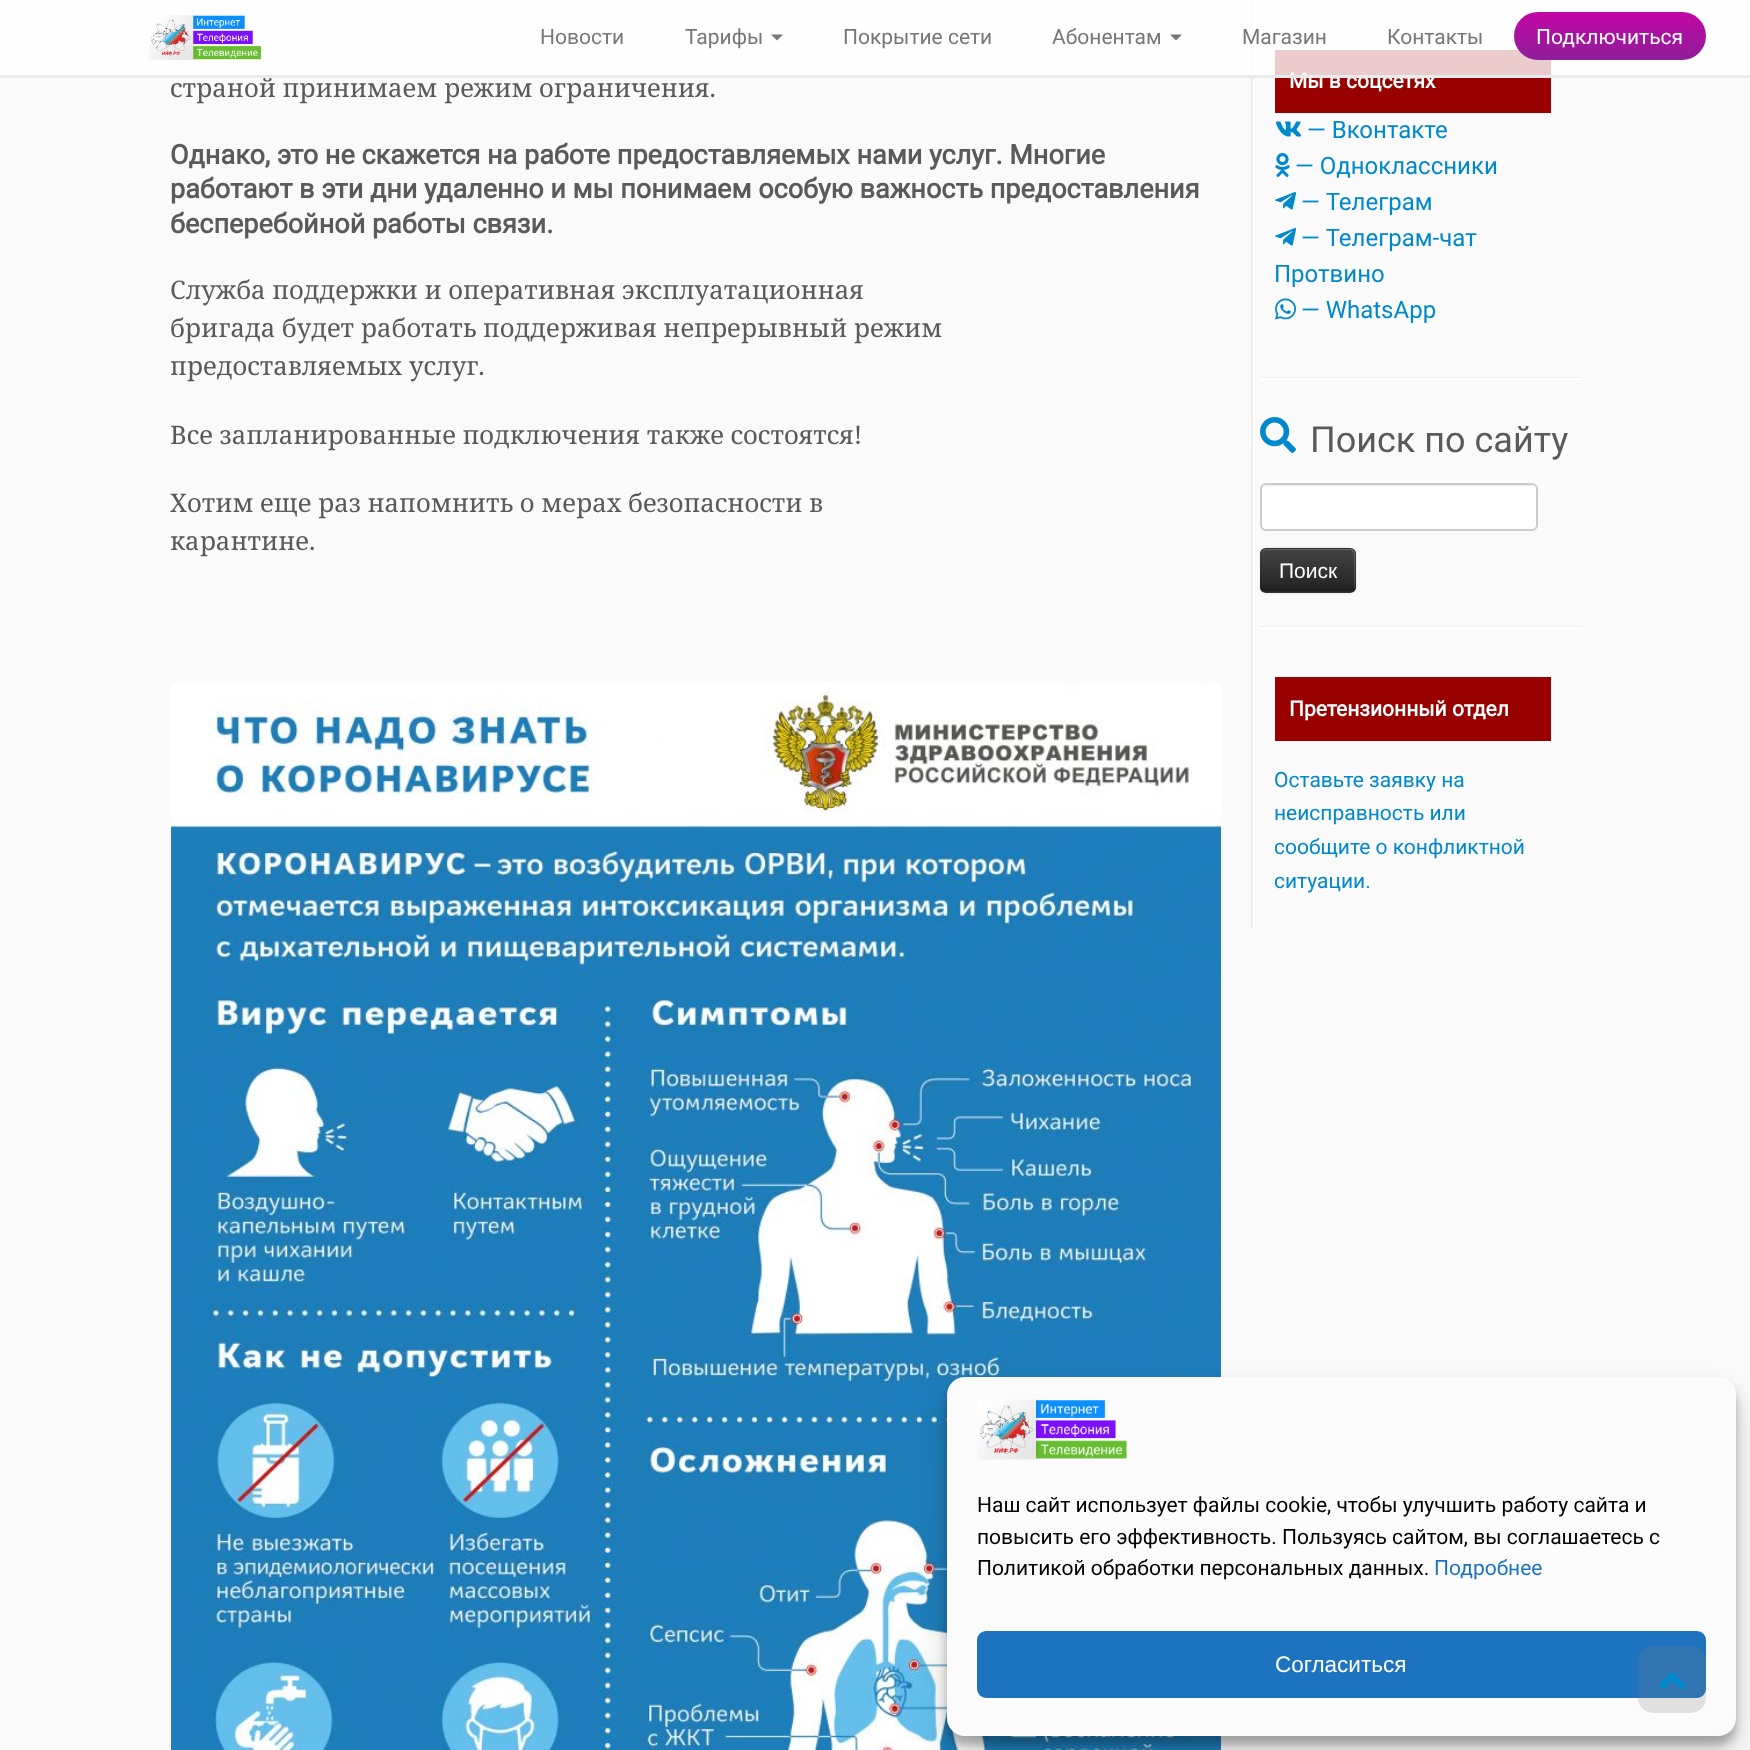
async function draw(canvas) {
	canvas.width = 1750;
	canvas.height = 1750;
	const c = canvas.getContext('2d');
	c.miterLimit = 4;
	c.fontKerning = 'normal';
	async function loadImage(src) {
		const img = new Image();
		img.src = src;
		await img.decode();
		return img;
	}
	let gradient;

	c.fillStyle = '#fafafa';
	c.fillRect(0, 0, 1750, 1750);
	c.fillStyle = '#eee';
	c.fillRect(1251, 0, 2, 929);
	c.fillStyle = '#0000000d';
	c.filter = 'blur(1.5px)';
	c.beginPath();
	c.roundRect(1260, 549, 96, 45, 6);
	c.fill();
	c.filter = 'none';
	c.fillStyle = '#fff';
	c.fillRect(1253, 0, 2, 929);
	c.fillStyle = '#900';
	c.fillRect(1275, 50, 276, 63);
	c.font = 'bold 21px Roboto';
	c.fillStyle = '#fff';
	c.fillText('Мы в соцсетях', 1289, 88);
	c.fillStyle = '#ffffffcc';
	c.fillRect(0, 0, 1750, 75);
	c.font = '25.5px Noto Serif';
	c.fillStyle = '#5a5a5a';
	c.fillText('страной принимаем режим ограничения.', 170, 97);
	c.fillStyle = '#e9eaee';
	c.fillRect(0, 75, 1750, 3);
	c.drawImage(await loadImage('img1.png'), 148, 15, 114, 45);
	c.font = '21px Roboto';
	c.fillStyle = '#777';
	c.fillText('Новости', 540, 44);
	c.fillText('Тарифы', 685, 44);
	c.beginPath();
	c.moveTo(771, 34.5);
	c.lineTo(783, 34.5);
	c.lineTo(777, 40.5);
	c.closePath();
	c.fill();
	c.fillText('Покрытие сети', 843, 44);
	c.fillText('Абонентам', 1052, 44);
	c.beginPath();
	c.moveTo(1170, 34.5);
	c.lineTo(1182, 34.5);
	c.lineTo(1176, 40.5);
	c.closePath();
	c.fill();
	c.fillText('Магазин', 1242, 44);
	c.fillText('Контакты', 1387, 44);
	gradient = c.createLinearGradient(1610, 60, 1610, 12);
	gradient.addColorStop(0, '#8d1e9a');
	gradient.addColorStop(1, '#c306a5');
	c.fillStyle = gradient;
	c.beginPath();
	c.roundRect(1514, 12, 192, 48, 24);
	c.fill();
	c.fillStyle = '#fff';
	c.fillText('Подключиться', 1536, 44);
	c.font = 'bold 27px Roboto';
	c.fillStyle = '#5a5a5a';
	for (const [text, x, y] of [
		['Однако, это не скажется на работе предоставляемых нами услуг. Многие', 170, 164],
		['работают в эти дни удаленно и мы понимаем особую важность предоставления', 170, 198],
		['бесперебойной работы связи.', 170, 233],
	]) {
		c.fillText(text, x, y);
	}
	c.font = '25.5px Noto Serif';
	for (const [text, x, y] of [
		['Служба поддержки и оперативная эксплуатационная', 170, 299],
		['бригада будет работать поддерживая непрерывный режим', 170, 337],
		['предоставляемых услуг.', 170, 375],
		['Все запланированные подключения также состоятся!', 170, 444],
		['Хотим еще раз напомнить о мерах безопасности в', 170, 512],
		['карантине.', 170, 550],
	]) {
		c.fillText(text, x, y);
	}
	c.drawImage(await loadImage('img2.png'), 171, 683, 1050, 1067);
	c.drawImage(await loadImage('img3.png'), 1275, 121, 27, 16);
	c.font = '24px Roboto';
	c.fillStyle = '#08c';
	c.fillText('— Вконтакте', 1307, 138);
	c.drawImage(await loadImage('img4.png'), 1275, 153, 15, 24);
	c.fillText('— Одноклассники', 1295, 174);
	c.drawImage(await loadImage('img5.png'), 1275, 192, 21, 18);
	c.fillText('— Телеграм', 1301, 210);
	c.drawImage(await loadImage('img5.png'), 1275, 228, 21, 18);
	c.fillText('— Телеграм-чат', 1301, 246);
	c.fillText('Протвино', 1274, 282);
	c.drawImage(await loadImage('img6.png'), 1275, 298, 21, 22);
	c.fillText('— WhatsApp', 1301, 318);
	c.fillStyle = '#eee';
	c.fillRect(1260, 377, 321, 1);
	c.fillStyle = '#fff';
	c.fillRect(1260, 378, 321, 2);
	c.drawImage(await loadImage('img7.png'), 1260, 417, 36, 36);
	c.font = '36px Roboto';
	c.fillStyle = '#5a5a5a';
	c.fillText('Поиск по сайту', 1310, 452);
	c.fillStyle = '#fff';
	c.beginPath();
	c.roundRect(1260, 483, 278, 48, 6);
	c.fill();
	c.fillStyle = '#ececec';
	c.beginPath();
	c.moveTo(1266, 486);
	c.lineTo(1532, 486);
	c.bezierCurveTo(1534, 486, 1536, 488, 1536, 490);
	c.bezierCurveTo(1536, 487, 1534, 485, 1531, 485);
	c.lineTo(1267, 485);
	c.bezierCurveTo(1264, 485, 1262, 487, 1262, 490);
	c.bezierCurveTo(1262, 488, 1264, 486, 1266, 486);
	c.closePath();
	c.fill();
	c.beginPath();
	c.roundRect(1261, 484, 276, 46, 5);
	c.strokeStyle = '#ccc';
	c.lineWidth = 2;
	c.stroke();
	c.fillStyle = '#363636';
	c.beginPath();
	c.roundRect(1260, 548, 96, 45, 6);
	c.fill();
	c.save();
	c.beginPath();
	c.roundRect(1260, 548, 96, 45, 6);
	c.clip();
	gradient = c.createLinearGradient(1308, 549, 1308, 591);
	gradient.addColorStop(0, '#444');
	gradient.addColorStop(1, '#222');
	c.fillStyle = gradient;
	c.fillRect(1260, 549, 96, 42);
	c.restore();
	c.fillStyle = '#ffffff33';
	c.beginPath();
	c.moveTo(1266, 550);
	c.lineTo(1350, 550);
	c.bezierCurveTo(1352, 550, 1354, 553, 1354, 555);
	c.lineTo(1354, 589);
	c.bezierCurveTo(1355, 588, 1355, 587, 1355, 586);
	c.lineTo(1355, 554);
	c.bezierCurveTo(1355, 551, 1353, 549, 1350, 549);
	c.lineTo(1267, 549);
	c.bezierCurveTo(1264, 549, 1262, 551, 1262, 554);
	c.lineTo(1262, 555);
	c.bezierCurveTo(1262, 553, 1264, 550, 1266, 550);
	c.closePath();
	c.fill();
	c.beginPath();
	c.moveTo(1353.5, 590);
	c.lineTo(1350.5, 591.5);
	c.lineTo(1265.5, 591.5);
	c.lineTo(1262.5, 590);
	c.strokeStyle = '#00000040';
	c.lineWidth = 1.5;
	c.stroke();
	c.beginPath();
	c.moveTo(1262.5, 590);
	c.bezierCurveTo(1260, 588, 1261, 584, 1261, 581);
	c.lineTo(1261, 570);
	c.bezierCurveTo(1261, 546.5, 1257, 548, 1280, 548);
	c.lineTo(1336, 548);
	c.bezierCurveTo(1359, 548, 1355, 546.5, 1355, 570);
	c.lineTo(1355, 581);
	c.bezierCurveTo(1355, 584, 1356, 588, 1353.5, 590);
	c.strokeStyle = '#0000001a';
	c.stroke();
	c.font = '21px Liberation Sans';
	c.fillStyle = '#fff';
	c.fillText('Поиск', 1279, 578);
	for (const [x, y, w, h, color] of [
		[1260, 626, 321, 1, '#eee'],
		[1260, 627, 321, 2, '#fff'],
		[1275, 677, 276, 64, '#900'],
	]) {
		c.fillStyle = color;
		c.fillRect(x, y, w, h);
	}
	c.font = 'bold 21px Roboto';
	c.fillStyle = '#fff';
	c.fillText('Претензионный отдел', 1289, 716);
	c.font = '21px Roboto';
	c.fillStyle = '#08c';
	for (const [text, x, y] of [
		['Оставьте заявку на', 1274, 787],
		['неисправность или', 1274, 820],
		['сообщите о конфликтной', 1274, 854],
		['ситуации.', 1274, 888],
	]) {
		c.fillText(text, x, y);
	}
	c.fillStyle = '#0000003b';
	c.filter = 'blur(4.5px)';
	c.beginPath();
	c.roundRect(947, 1386, 789, 359, 18);
	c.fill();
	c.filter = 'none';
	c.fillStyle = '#00000030';
	c.filter = 'blur(15px)';
	c.beginPath();
	c.roundRect(947, 1392, 789, 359, 18);
	c.fill();
	c.filter = 'none';
	c.fillStyle = '#fbfbfb';
	c.beginPath();
	c.roundRect(947, 1377, 789, 359, 18);
	c.fill();
	c.drawImage(await loadImage('img8.png'), 977, 1399, 150, 61);
	c.fillStyle = '#000';
	for (const [text, x, y] of [
		['Наш сайт использует файлы cookie, чтобы улучшить работу сайта и', 977, 1512],
		['повысить его эффективность. Пользуясь сайтом, вы соглашаетесь с', 977, 1544],
		['Политикой обработки персональных данных.', 977, 1575],
	]) {
		c.fillText(text, x, y);
	}
	c.fillStyle = '#1e73be';
	c.fillText('Подробнее', 1434, 1575);
	c.beginPath();
	c.roundRect(978, 1632, 727, 65, 8);
	c.fill();
	c.strokeStyle = '#1e73be';
	c.lineWidth = 2;
	c.stroke();
	c.font = '22.5px Liberation Sans';
	c.fillStyle = '#fff';
	c.fillText('Согласиться', 1275, 1672);
	c.fillStyle = '#77777733';
	c.beginPath();
	c.roundRect(1638, 1646, 68, 67, 15);
	c.fill();
	c.drawImage(await loadImage('img9.png'), 1659, 1672, 27, 18);
}

draw(document.querySelector('canvas'));
